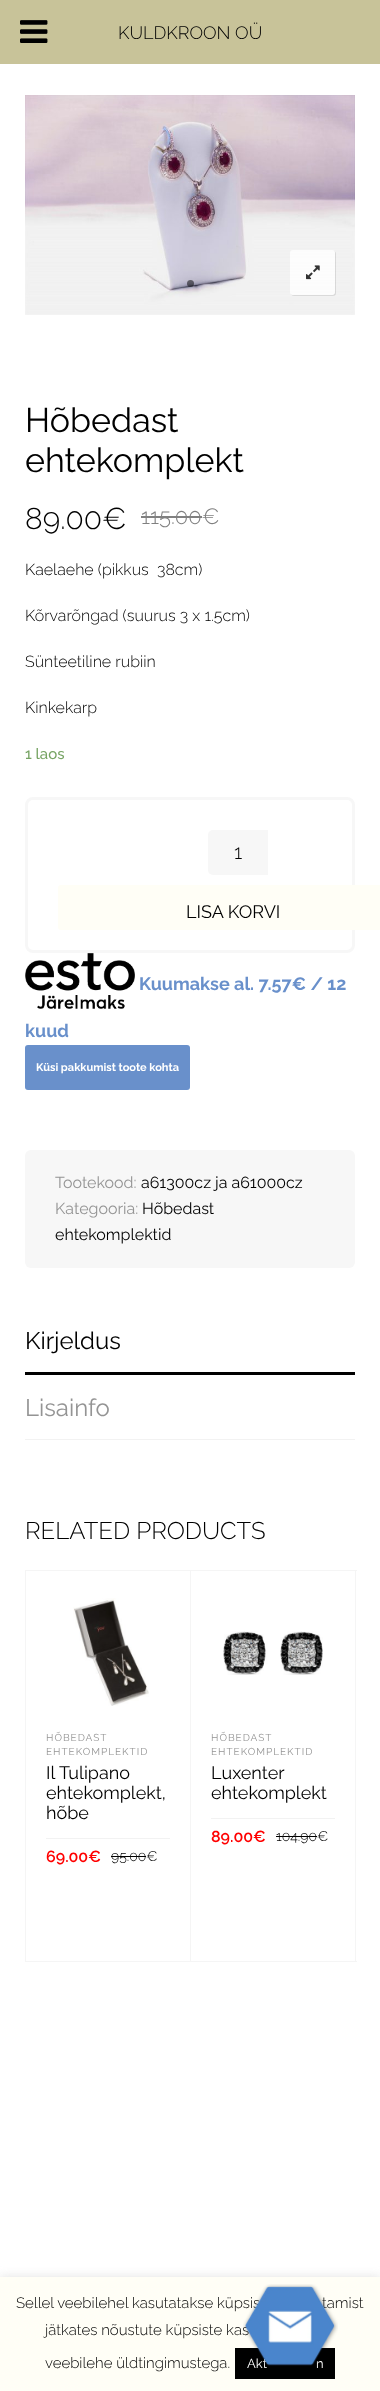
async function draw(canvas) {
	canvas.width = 380;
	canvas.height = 2391;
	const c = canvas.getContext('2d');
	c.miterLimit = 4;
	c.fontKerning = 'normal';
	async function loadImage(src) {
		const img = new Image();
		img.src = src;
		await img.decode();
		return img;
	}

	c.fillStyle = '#fff';
	c.fillRect(0, 0, 380, 2391);
	c.fillStyle = '#c8c399';
	c.fillRect(0, 0, 380, 64);
	c.drawImage(await loadImage('img1.png'), 20, 20, 28, 23);
	c.font = '300 18px Raleway';
	c.fillStyle = '#000';
	c.fillText('KULDKROON OÜ', 118, 39);
	c.drawImage(await loadImage('img2.png'), 25, 95, 330, 220);
	c.save();
	c.beginPath();
	c.moveTo(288, 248);
	c.lineTo(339, 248);
	c.lineTo(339, 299);
	c.lineTo(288, 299);
	c.closePath();
	c.moveTo(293, 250);
	c.lineTo(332, 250);
	c.bezierCurveTo(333.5, 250, 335, 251.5, 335, 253);
	c.lineTo(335, 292);
	c.bezierCurveTo(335, 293.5, 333.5, 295, 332, 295);
	c.lineTo(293, 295);
	c.bezierCurveTo(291.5, 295, 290, 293.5, 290, 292);
	c.lineTo(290, 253);
	c.bezierCurveTo(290, 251.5, 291.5, 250, 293, 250);
	c.closePath();
	c.clip('evenodd');
	c.fillStyle = '#0000001a';
	c.filter = 'blur(0.5px)';
	c.beginPath();
	c.roundRect(291, 251, 45, 45, 3);
	c.fill();
	c.filter = 'none';
	c.restore();
	c.fillStyle = '#ffffffcc';
	c.beginPath();
	c.roundRect(290, 250, 45, 45, 3);
	c.fill();
	c.drawImage(await loadImage('img3.png'), 306, 265, 14, 15);
	c.fillStyle = '#00000080';
	c.beginPath();
	c.arc(190.5, 283.5, 3.5, 0, 2 * Math.PI);
	c.fill();
	c.font = '34px Raleway';
	c.fillStyle = '#000';
	c.fillText('Hõbedast', 25, 432);
	c.fillText('ehtekomplekt', 25, 472);
	c.font = '300 30px Raleway';
	c.fillText('89.00€', 25, 529);
	c.font = '300 22px Raleway';
	c.fillStyle = '#808080';
	c.fillText('115.00€', 141, 524);
	c.fillRect(141, 516, 61, 2);
	c.font = '300 16px Raleway';
	c.fillStyle = '#000';
	for (const [text, x, y] of [
		['Kaelaehe (pikkus  38cm)', 25, 575],
		['Kõrvarõngad (suurus 3 x 1.5cm)', 25, 621],
		['Sünteetiline rubiin', 25, 667],
		['Kinkekarp', 25, 713],
	]) {
		c.fillText(text, x, y);
	}
	c.font = '500 15px Raleway';
	c.fillStyle = '#77a464';
	c.fillText('1 laos', 25, 759);
	c.beginPath();
	c.roundRect(26.5, 798.5, 327, 153, 6.5);
	c.strokeStyle = '#f7f7f7';
	c.lineWidth = 3;
	c.stroke();
	c.fillStyle = '#f7f7f7';
	c.beginPath();
	c.roundRect(208, 830, 60, 45, [5, 0, 0, 5]);
	c.fill();
	c.font = '300 20px Raleway';
	c.fillStyle = '#000';
	c.fillText('1', 234, 859);
	c.fillStyle = '#fffef6';
	c.beginPath();
	c.roundRect(58, 885, 322, 45, [3, 0, 0, 3]);
	c.fill();
	c.font = '18px Raleway';
	c.fillStyle = '#000';
	c.fillText('LISA KORVI', 186, 918);
	c.drawImage(await loadImage('img4.png'), 25, 953, 110, 56);
	c.font = 'bold 18px Raleway';
	c.fillStyle = '#6990cb';
	c.fillText('Kuumakse al. 7.57€ / 12', 139, 990);
	c.fillText('kuud', 25, 1037);
	c.beginPath();
	c.roundRect(25, 1045, 165, 45, 3);
	c.fill();
	c.font = 'bold 11px Raleway';
	c.fillStyle = '#fff';
	c.fillText('Küsi pakkumist toote kohta', 36, 1071);
	c.fillStyle = '#f7f7f7';
	c.beginPath();
	c.roundRect(25, 1150, 330, 118, 6);
	c.fill();
	c.font = '16px Raleway';
	c.fillStyle = '#949494';
	c.fillText('Tootekood:', 55, 1188);
	c.fillStyle = '#000';
	c.fillText('a61300cz ja a61000cz', 141, 1188);
	c.fillStyle = '#949494';
	c.fillText('Kategooria:', 55, 1214);
	c.fillStyle = '#000';
	c.fillText('Hõbedast', 142, 1214);
	c.fillText('ehtekomplektid', 55, 1240);
	c.fillRect(25, 1372, 330, 3);
	c.font = '24px Raleway';
	c.fillText('Kirjeldus', 25, 1349);
	c.fillStyle = '#f2f2f2';
	c.fillRect(25, 1439, 330, 1);
	c.fillStyle = '#949494';
	c.fillText('Lisainfo', 25, 1416);
	c.font = '300 24px Raleway';
	c.fillStyle = '#000';
	c.fillText('RELATED PRODUCTS', 25, 1539);
	c.strokeStyle = '#f5f5f5';
	c.lineWidth = 1;
	c.strokeRect(25.5, 1570.5, 165, 391);
	c.drawImage(await loadImage('img5.png'), 73, 1598, 76, 108);
	c.letterSpacing = '1px';
	c.font = '10px Raleway';
	c.fillStyle = '#949494';
	c.fillText('HÕBEDAST', 46, 1741);
	c.fillText('EHTEKOMPLEKTID', 46, 1755);
	c.letterSpacing = '0px';
	c.font = '18px Raleway';
	c.fillStyle = '#000';
	for (const [text, x, y] of [
		['Il Tulipano', 46, 1779],
		['ehtekomplekt,', 46, 1799],
		['hõbe', 46, 1819],
	]) {
		c.fillText(text, x, y);
	}
	c.fillStyle = '#f2f2f2';
	c.fillRect(46, 1838, 124, 1);
	c.font = '600 16px Raleway';
	c.fillStyle = '#f00';
	c.fillText('69.00€', 46, 1862);
	c.font = '300 14px Raleway';
	c.fillStyle = '#000';
	c.fillText('95.00€', 111, 1861);
	c.fillRect(111, 1856, 35, 1);
	c.strokeRect(190.5, 1570.5, 165, 391);
	c.drawImage(await loadImage('img6.png'), 223, 1631, 100, 44);
	c.letterSpacing = '1px';
	c.font = '10px Raleway';
	c.fillStyle = '#949494';
	c.fillText('HÕBEDAST', 211, 1741);
	c.fillText('EHTEKOMPLEKTID', 211, 1755);
	c.letterSpacing = '0px';
	c.font = '18px Raleway';
	c.fillStyle = '#000';
	c.fillText('Luxenter', 211, 1779);
	c.fillText('ehtekomplekt', 211, 1799);
	c.fillStyle = '#f2f2f2';
	c.fillRect(211, 1818, 124, 1);
	c.font = '600 16px Raleway';
	c.fillStyle = '#f00';
	c.fillText('89.00€', 211, 1842);
	c.font = '300 14px Raleway';
	c.fillStyle = '#000';
	c.fillText('104.90€', 276, 1841);
	c.fillRect(276, 1836, 41, 1);
	c.save();
	c.beginPath();
	c.rect(25, 1540, 332, 481);
	c.clip();
	c.strokeRect(355.5, 1570.5, 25, 391);
	c.restore();
	c.fillStyle = '#acabab4d';
	c.filter = 'blur(5px)';
	c.beginPath();
	c.rect(0, 2276, 380, 114);
	c.fill();
	c.filter = 'none';
	c.fillStyle = '#fffef6';
	c.fillRect(0, 2277, 380, 114);
	c.font = '300 15px Raleway';
	c.fillStyle = '#000';
	for (const [text, x, y] of [
		['Sellel veebilehel kasutatakse küpsis', 16, 2308],
		['tamist', 322, 2308],
		['jätkates nõustute küpsiste kas', 45, 2335],
		['veebilehe üldtingimustega.', 45, 2368],
	]) {
		c.fillText(text, x, y);
	}
	c.fillRect(235, 2348, 100, 31);
	c.font = '13px Raleway';
	c.fillStyle = '#fff';
	c.fillText('Akt', 247, 2368);
	c.fillText('n', 316, 2368);
	c.drawImage(await loadImage('img7.png'), 243, 2284, 95, 85);
}

draw(document.querySelector('canvas'));
